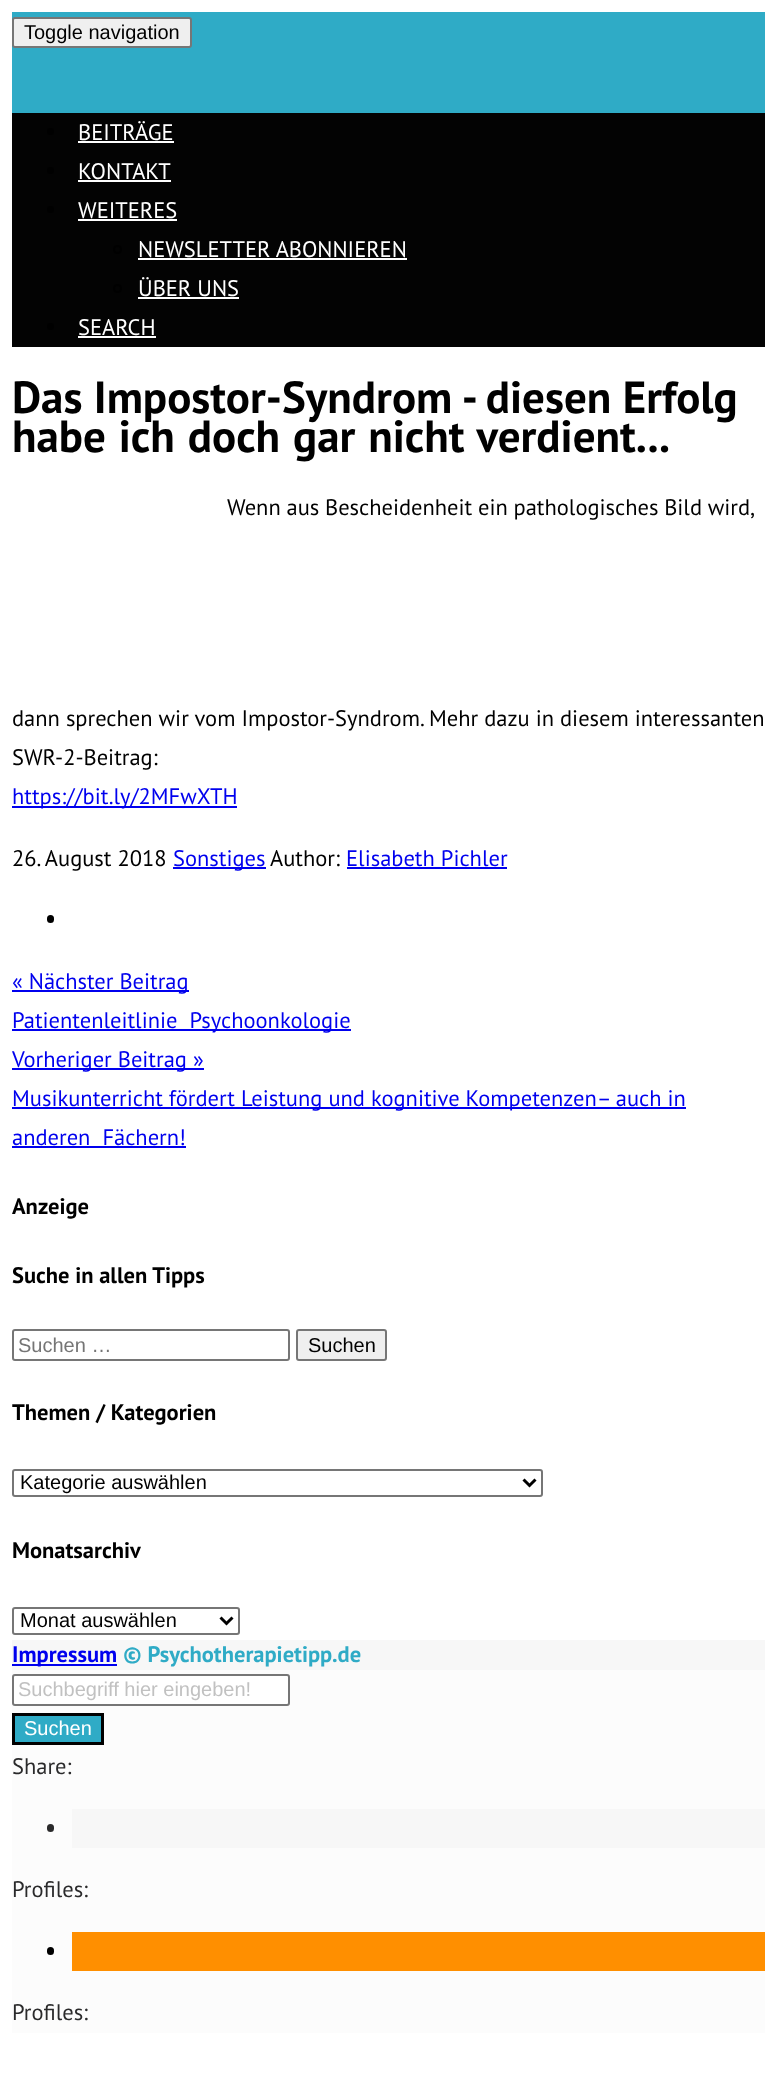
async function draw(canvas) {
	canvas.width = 776;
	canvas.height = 2081;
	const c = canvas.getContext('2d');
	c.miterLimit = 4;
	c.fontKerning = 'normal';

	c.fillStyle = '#fff';
	c.fillRect(0, 0, 776, 2081);
	c.fillStyle = '#2fabc6';
	c.fillRect(12, 12, 753, 101);
	c.fillStyle = '#efefef';
	c.beginPath();
	c.roundRect(13, 18, 178, 29, 2);
	c.fill();
	c.strokeStyle = '#767676';
	c.lineWidth = 2;
	c.stroke();
	c.font = '20px Liberation Sans';
	c.fillStyle = '#000';
	c.fillText('Toggle navigation', 24, 39);
	c.fillStyle = '#030303';
	c.fillRect(12, 113, 753, 234);
	c.fillStyle = '#000';
	c.beginPath();
	c.arc(50.5, 131.5, 3.5, 0, 2 * Math.PI);
	c.fill();
	c.font = '22.5px PT Sans';
	c.fillStyle = '#fff';
	c.fillText('BEITRÄGE', 78, 140);
	c.fillRect(78, 141, 96, 2);
	c.fillStyle = '#000';
	c.beginPath();
	c.arc(50.5, 170.5, 3.5, 0, 2 * Math.PI);
	c.fill();
	c.fillStyle = '#fff';
	c.fillText('KONTAKT', 78, 179);
	c.fillRect(78, 180, 93, 2);
	c.fillStyle = '#000';
	c.beginPath();
	c.arc(50.5, 209.5, 3.5, 0, 2 * Math.PI);
	c.fill();
	c.fillStyle = '#fff';
	c.fillText('WEITERES', 78, 218);
	c.fillRect(78, 219, 99, 2);
	c.beginPath();
	c.arc(117.5, 249.5, 3.5, 0, 2 * Math.PI);
	c.strokeStyle = '#000';
	c.stroke();
	c.fillText('NEWSLETTER ABONNIEREN', 138, 257);
	c.fillRect(138, 258, 269, 2);
	c.beginPath();
	c.arc(117.5, 288.5, 3.5, 0, 2 * Math.PI);
	c.stroke();
	c.fillText('ÜBER UNS', 138, 296);
	c.fillRect(138, 297, 101, 2);
	c.fillStyle = '#000';
	c.beginPath();
	c.arc(50.5, 326.5, 3.5, 0, 2 * Math.PI);
	c.fill();
	c.fillStyle = '#fff';
	c.fillText('SEARCH', 78, 335);
	c.fillRect(78, 336, 78, 2);
	c.font = 'bold 45px PT Sans';
	c.fillStyle = '#000';
	c.fillText('Das Impostor-Syndrom - diesen Erfolg', 12, 413);
	c.wordSpacing = '1.5px';
	c.fillText('habe ich doch gar nicht verdient...', 12, 452);
	c.wordSpacing = '-0.25px';
	c.font = '22.5px PT Sans';
	c.fillText('Wenn aus Bescheidenheit ein pathologisches Bild wird,', 227, 515);
	c.wordSpacing = '0px';
	c.fillText('dann sprechen wir vom Impostor-Syndrom. Mehr dazu in diesem interessanten', 12, 726);
	c.fillText('SWR-2-Beitrag:', 12, 765);
	c.fillStyle = '#00e';
	c.fillRect(12, 806, 225, 2);
	c.fillText('https://bit.ly/2MFwXTH', 12, 804);
	c.fillStyle = '#000';
	c.fillText('26. August 2018', 12, 866);
	c.fillStyle = '#00e';
	c.fillRect(173, 867, 93, 2);
	c.fillText('Sonstiges', 173, 866);
	c.fillStyle = '#000';
	c.fillText('Author:', 270, 866);
	c.fillStyle = '#00e';
	c.fillText('Elisabeth Pichler', 346, 866);
	c.fillRect(347, 867, 160, 2);
	c.fillStyle = '#000';
	c.beginPath();
	c.roundRect(47, 915, 7, 8, 3.5);
	c.fill();
	c.fillStyle = '#00e';
	c.fillRect(12, 990, 177, 2);
	c.fillText('« Nächster Beitrag', 12, 989);
	c.fillRect(12, 1029, 339, 2);
	c.wordSpacing = '6px';
	c.fillText('Patientenleitlinie Psychoonkologie', 12, 1028);
	c.fillRect(12, 1068, 192, 2);
	c.wordSpacing = '0px';
	c.fillText('Vorheriger Beitrag »', 12, 1067);
	c.fillRect(12, 1107, 674, 2);
	c.fillText('Musikunterricht fördert Leistung und kognitive Kompetenzen– auch in', 12, 1106);
	c.wordSpacing = '6px';
	c.fillText('anderen Fächern!', 12, 1145);
	c.fillRect(12, 1146, 174, 2);
	c.wordSpacing = '0px';
	c.font = 'bold 22.5px PT Sans';
	c.fillStyle = '#000';
	c.fillText('Anzeige', 12, 1214);
	c.fillText('Suche in allen Tipps', 12, 1283);
	c.beginPath();
	c.roundRect(13, 1330, 276, 30, 2);
	c.strokeStyle = '#767676';
	c.stroke();
	c.font = '20px Liberation Sans';
	c.fillStyle = '#757575';
	c.fillText('Suchen …', 18, 1352);
	c.fillStyle = '#efefef';
	c.beginPath();
	c.roundRect(297, 1330, 89, 30, 2);
	c.fill();
	c.stroke();
	c.fillStyle = '#000';
	c.fillText('Suchen', 308, 1352);
	c.font = 'bold 22.5px PT Sans';
	c.fillText('Themen / Kategorien', 12, 1420);
	c.beginPath();
	c.roundRect(13, 1470, 529, 26, 2);
	c.stroke();
	c.beginPath();
	c.moveTo(523.5, 1479.5);
	c.lineTo(529.5, 1485.5);
	c.lineTo(535.5, 1479.5);
	c.strokeStyle = '#000';
	c.lineWidth = 3;
	c.stroke();
	c.font = '20px Liberation Sans';
	c.fillText('Kategorie auswählen', 20, 1489);
	c.font = 'bold 22.5px PT Sans';
	c.fillText('Monatsarchiv', 12, 1558);
	c.beginPath();
	c.roundRect(13, 1608, 226, 26, 2);
	c.strokeStyle = '#767676';
	c.lineWidth = 2;
	c.stroke();
	c.beginPath();
	c.moveTo(220.5, 1617.5);
	c.lineTo(226.5, 1623.5);
	c.lineTo(232.5, 1617.5);
	c.strokeStyle = '#000';
	c.lineWidth = 3;
	c.stroke();
	c.font = '20px Liberation Sans';
	c.fillText('Monat auswählen', 20, 1627);
	c.fillStyle = '#f7f7f7';
	c.fillRect(12, 1640, 753, 30);
	c.fillStyle = '#00e';
	c.fillRect(12, 1664, 105, 2);
	c.font = 'bold 22.5px PT Sans';
	c.fillText('Impressum', 12, 1662);
	c.fillStyle = '#2fabc6';
	c.fillText('© Psychotherapietipp.de', 123, 1662);
	c.fillStyle = '#fcfcfc';
	c.fillRect(12, 1670, 753, 363);
	c.fillStyle = '#fff';
	c.beginPath();
	c.roundRect(13, 1675, 276, 30, 2);
	c.fill();
	c.strokeStyle = '#767676';
	c.lineWidth = 2;
	c.stroke();
	c.font = '20px Liberation Sans';
	c.fillStyle = '#c1c1c1';
	c.fillText('Suchbegriff hier eingeben!', 18, 1696);
	c.fillStyle = '#2fabc6';
	c.beginPath();
	c.rect(13.5, 1714.5, 89, 29);
	c.fill();
	c.strokeStyle = '#000';
	c.lineWidth = 3;
	c.stroke();
	c.fillStyle = '#fff';
	c.fillText('Suchen', 24, 1735);
	c.font = '22.5px PT Sans';
	c.fillStyle = '#2a2a2b';
	c.fillText('Share:', 12, 1774);
	c.fillStyle = '#f7f7f7';
	c.fillRect(72, 1809, 693, 39);
	c.fillStyle = '#2a2a2b';
	c.beginPath();
	c.roundRect(47, 1824, 7, 8, 3.5);
	c.fill();
	c.fillText('Profiles:', 12, 1897);
	c.fillStyle = '#ff8f00';
	c.fillRect(72, 1932, 693, 39);
	c.fillStyle = '#000';
	c.beginPath();
	c.roundRect(47, 1947, 7, 8, 3.5);
	c.fill();
	c.fillStyle = '#2a2a2b';
	c.fillText('Profiles:', 12, 2020);
}

draw(document.querySelector('canvas'));
